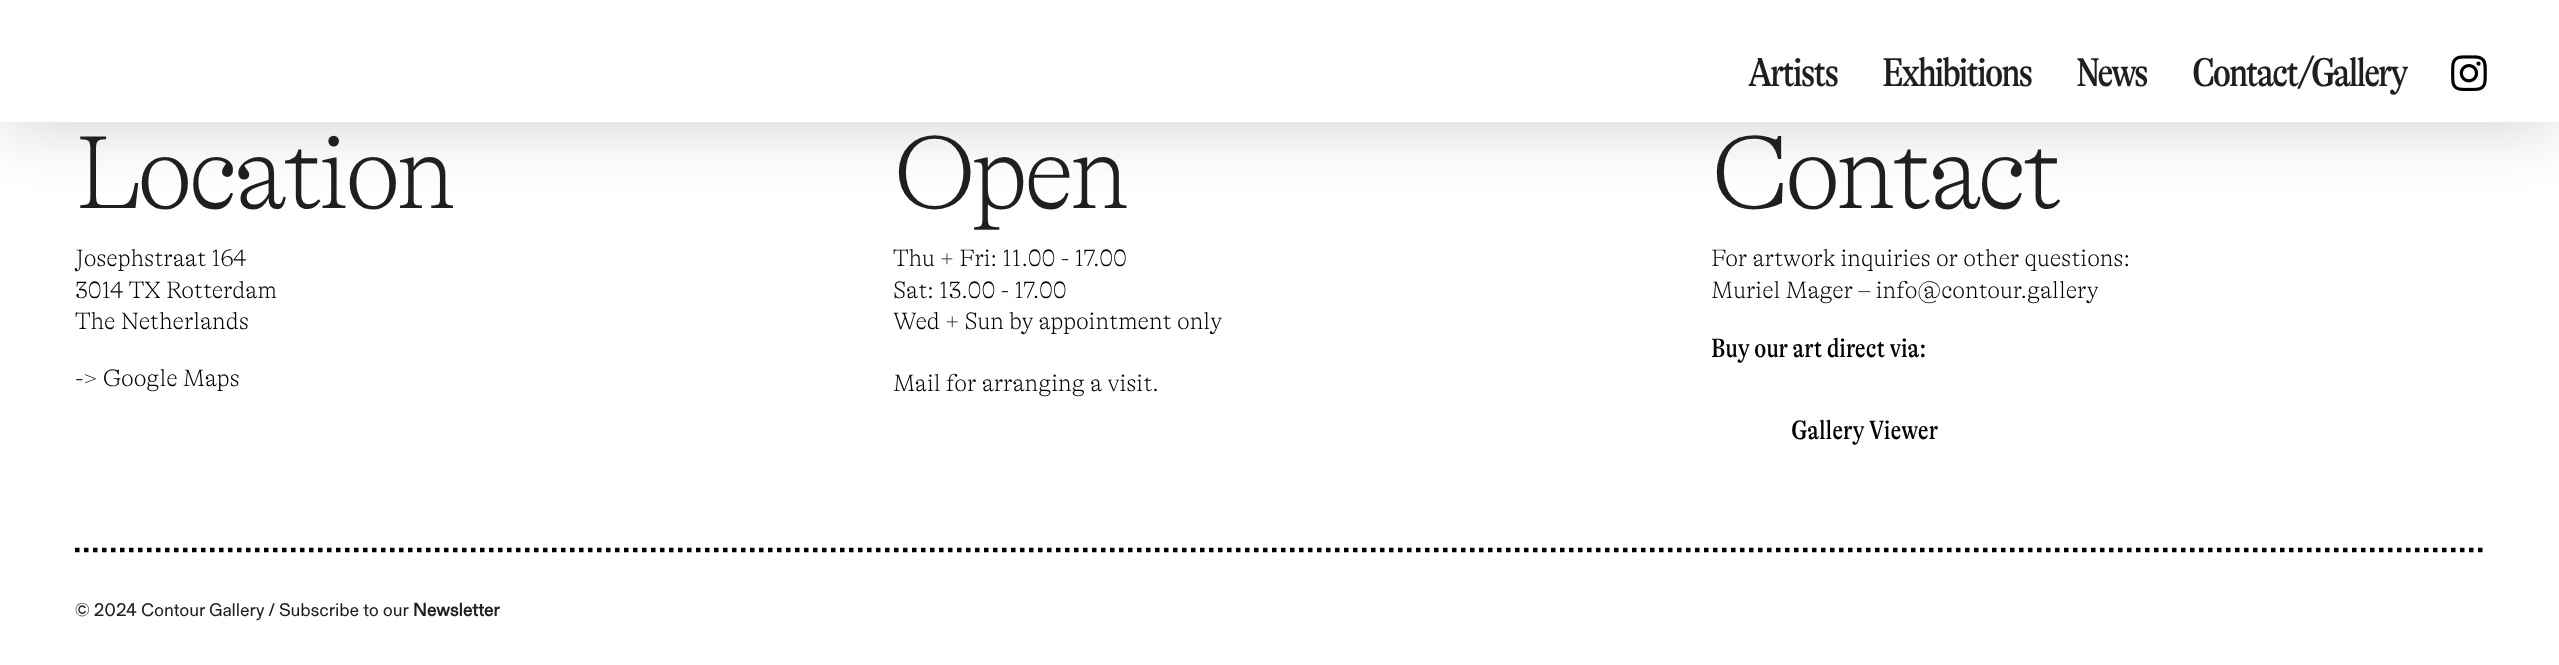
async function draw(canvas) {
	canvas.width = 2559;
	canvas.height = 665;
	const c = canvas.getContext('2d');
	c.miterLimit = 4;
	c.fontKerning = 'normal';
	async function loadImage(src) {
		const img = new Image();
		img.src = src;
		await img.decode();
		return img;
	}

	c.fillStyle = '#fff';
	c.fillRect(0, 0, 2559, 665);
	c.fillStyle = '#00000012';
	c.filter = 'blur(30px)';
	c.beginPath();
	c.rect(0, -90, 2559, 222);
	c.fill();
	c.filter = 'none';
	c.fillStyle = '#0000001a';
	c.filter = 'blur(37.5px)';
	c.beginPath();
	c.rect(0, -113, 2559, 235);
	c.fill();
	c.filter = 'none';
	c.fillStyle = '#fff';
	c.fillRect(0, 0, 2559, 122);
	c.letterSpacing = '-2.4px';
	c.font = '40.75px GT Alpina';
	c.fillStyle = '#1f1f1f';
	for (const [text, x, y] of [
		['Artists', 1748, 86],
		['Exhibitions', 1882, 86],
		['News', 2076, 86],
		['Contact/Gallery', 2192, 86],
	]) {
		c.fillText(text, x, y);
	}
	c.drawImage(await loadImage('img1.png'), 2451, 55, 36, 37);
	c.letterSpacing = '-4.25px';
	c.font = '200 105px GT Alpina';
	c.fillText('Location', 75, 208);
	c.letterSpacing = '-0.1px';
	c.font = '200 24px GT Alpina';
	c.fillStyle = '#000';
	for (const [text, x, y] of [
		['Josephstraat 164', 75, 266],
		['3014 TX Rotterdam', 75, 298],
		['The Netherlands', 75, 329],
		['-> Google Maps', 75, 386],
	]) {
		c.fillText(text, x, y);
	}
	c.letterSpacing = '-4.25px';
	c.font = '200 105px GT Alpina';
	c.fillStyle = '#1f1f1f';
	c.fillText('Open', 893, 208);
	c.letterSpacing = '-0.1px';
	c.font = '200 24px GT Alpina';
	c.fillStyle = '#000';
	for (const [text, x, y] of [
		['Thu + Fri: 11.00 - 17.00', 893, 266],
		['Sat: 13.00 - 17.00', 893, 298],
		['Wed + Sun by appointment only', 893, 329],
		['Mail for arranging a visit.', 893, 391],
	]) {
		c.fillText(text, x, y);
	}
	c.letterSpacing = '-4.25px';
	c.font = '200 105px GT Alpina';
	c.fillStyle = '#1f1f1f';
	c.fillText('Contact', 1711, 208);
	c.letterSpacing = '-0.1px';
	c.font = '200 24px GT Alpina';
	c.fillStyle = '#000';
	c.fillText('For artwork inquiries or other questions:', 1711, 266);
	c.fillText('Muriel Mager – info@contour.gallery', 1711, 298);
	c.font = '27px GT Alpina';
	c.fillText('Buy our art direct via:', 1711, 357);
	c.fillText('Gallery Viewer', 1791, 439);
	c.beginPath();
	c.moveTo(75, 550);
	c.lineTo(2484, 550);
	c.strokeStyle = '#000';
	c.lineWidth = 4.5;
	c.setLineDash([4.5, 4.5]);
	c.stroke();
	c.letterSpacing = '0.35px';
	c.font = '18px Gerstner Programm';
	c.fillStyle = '#1f1f1f';
	c.fillText('© 2024 Contour Gallery / Subscribe to our', 75, 616);
	c.font = 'bold 18px Gerstner Programm';
	c.fillText('Newsletter', 413, 616);
}

draw(document.querySelector('canvas'));
